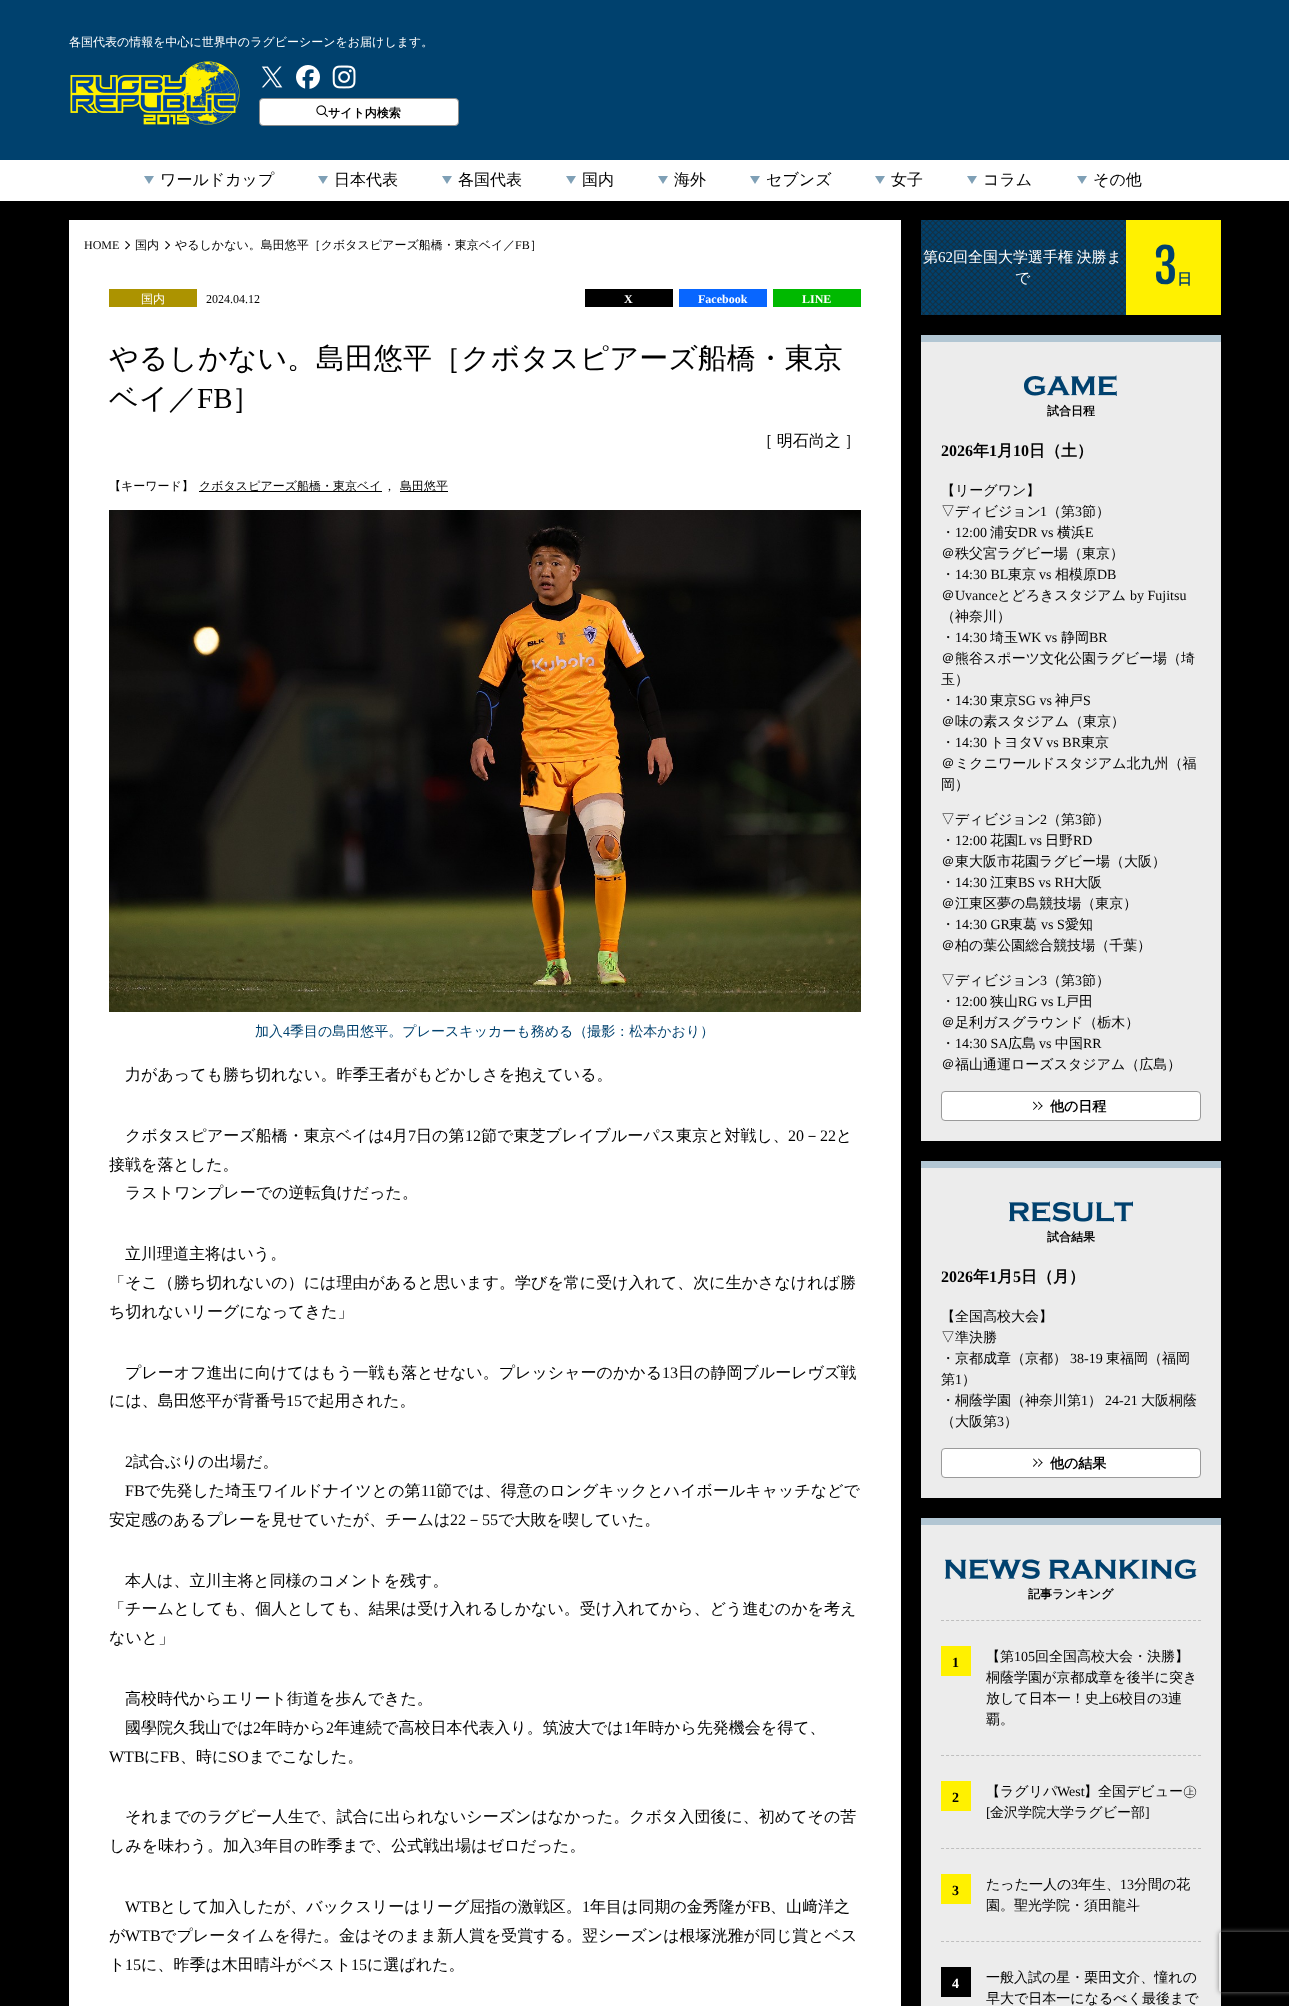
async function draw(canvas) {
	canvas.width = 1289;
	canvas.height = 2006;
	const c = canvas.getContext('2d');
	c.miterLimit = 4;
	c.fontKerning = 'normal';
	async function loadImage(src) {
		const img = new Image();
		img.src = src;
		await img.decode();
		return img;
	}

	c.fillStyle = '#000';
	c.fillRect(0, 0, 1289, 2006);
	c.fillStyle = '#00416e';
	c.fillRect(0, 0, 1289, 160);
	c.font = '500 12px WenQuanYi Zen Hei';
	c.fillStyle = '#fff';
	c.fillText('各国代表の情報を中心に世界中のラグビーシーンをお届けします。', 69, 46);
	c.drawImage(await loadImage('img1.png'), 70, 61, 170, 64);
	c.drawImage(await loadImage('img2.png'), 261, 66, 22, 22);
	c.drawImage(await loadImage('img3.png'), 296, 65, 24, 24);
	c.drawImage(await loadImage('img4.png'), 332, 65, 24, 24);
	c.beginPath();
	c.roundRect(259.5, 98.5, 199, 27, 3.5);
	c.fill();
	c.strokeStyle = '#8c8c8c';
	c.stroke();
	c.drawImage(await loadImage('img5.png'), 316, 105, 12, 12);
	c.font = 'bold 12px WenQuanYi Zen Hei';
	c.fillStyle = '#000';
	c.fillText('サイト内検索', 328, 117);
	c.fillStyle = '#fff';
	c.fillRect(0, 160, 1289, 41);
	c.fillStyle = '#7fa0b6';
	c.beginPath();
	c.moveTo(144, 176);
	c.lineTo(154, 176);
	c.lineTo(149, 184);
	c.closePath();
	c.fill();
	c.font = '500 16px WenQuanYi Zen Hei';
	c.fillStyle = '#000';
	c.fillText('ワールドカップ', 160, 185);
	c.fillStyle = '#7fa0b6';
	c.beginPath();
	c.moveTo(318, 176);
	c.lineTo(328, 176);
	c.lineTo(323, 184);
	c.closePath();
	c.fill();
	c.fillStyle = '#000';
	c.fillText('日本代表', 334, 185);
	c.fillStyle = '#7fa0b6';
	c.beginPath();
	c.moveTo(442, 176);
	c.lineTo(452, 176);
	c.lineTo(447, 184);
	c.closePath();
	c.fill();
	c.fillStyle = '#000';
	c.fillText('各国代表', 458, 185);
	c.fillStyle = '#7fa0b6';
	c.beginPath();
	c.moveTo(566, 176);
	c.lineTo(576, 176);
	c.lineTo(571, 184);
	c.closePath();
	c.fill();
	c.fillStyle = '#000';
	c.fillText('国内', 582, 185);
	c.fillStyle = '#7fa0b6';
	c.beginPath();
	c.moveTo(658, 176);
	c.lineTo(668, 176);
	c.lineTo(663, 184);
	c.closePath();
	c.fill();
	c.fillStyle = '#000';
	c.fillText('海外', 674, 185);
	c.fillStyle = '#7fa0b6';
	c.beginPath();
	c.moveTo(750, 176);
	c.lineTo(760, 176);
	c.lineTo(755, 184);
	c.closePath();
	c.fill();
	c.fillStyle = '#000';
	c.fillText('セブンズ', 766, 185);
	c.fillStyle = '#7fa0b6';
	c.beginPath();
	c.moveTo(875, 176);
	c.lineTo(885, 176);
	c.lineTo(880, 184);
	c.closePath();
	c.fill();
	c.fillStyle = '#000';
	c.fillText('女子', 891, 185);
	c.fillStyle = '#7fa0b6';
	c.beginPath();
	c.moveTo(967, 176);
	c.lineTo(977, 176);
	c.lineTo(972, 184);
	c.closePath();
	c.fill();
	c.fillStyle = '#000';
	c.fillText('コラム', 983, 185);
	c.fillStyle = '#7fa0b6';
	c.beginPath();
	c.moveTo(1077, 176);
	c.lineTo(1087, 176);
	c.lineTo(1082, 184);
	c.closePath();
	c.fill();
	c.fillStyle = '#000';
	c.fillText('その他', 1093, 185);
	c.fillStyle = '#fff';
	c.fillRect(69, 220, 832, 1786);
	c.font = '12px Liberation Serif';
	c.fillStyle = '#000';
	c.fillText('HOME', 84, 249);
	c.beginPath();
	c.moveTo(126, 241);
	c.lineTo(130, 245);
	c.lineTo(129.5, 246);
	c.lineTo(125, 241.5);
	c.closePath();
	c.fill();
	c.beginPath();
	c.moveTo(129.5, 244.5);
	c.lineTo(130, 245);
	c.lineTo(126, 249.5);
	c.lineTo(125, 248.5);
	c.closePath();
	c.fill();
	c.font = '500 12px WenQuanYi Zen Hei';
	c.fillText('国内', 135, 249);
	c.beginPath();
	c.moveTo(166, 241);
	c.lineTo(170, 245);
	c.lineTo(169.5, 246);
	c.lineTo(165, 241.5);
	c.closePath();
	c.fill();
	c.beginPath();
	c.moveTo(169.5, 244.5);
	c.lineTo(170, 245);
	c.lineTo(166, 249.5);
	c.lineTo(165, 248.5);
	c.closePath();
	c.fill();
	c.fillText('やるしかない。島田悠平［クボタスピアーズ船橋・東京ベイ／', 175, 249);
	c.font = '12px Liberation Serif';
	c.fillText('FB', 515, 249);
	c.font = '500 12px WenQuanYi Zen Hei';
	c.fillText('］', 530, 249);
	c.fillStyle = '#ac9300';
	c.fillRect(109, 289, 88, 18);
	c.fillStyle = '#fff';
	c.fillText('国内', 141, 303);
	c.font = '12px Liberation Serif';
	c.fillStyle = '#000';
	c.fillText('2024.04.12', 206, 303);
	c.fillRect(585, 289, 88, 18);
	c.font = 'bold 12px Liberation Serif';
	c.fillStyle = '#fff';
	c.fillText('X', 624, 303);
	c.fillStyle = '#0866ff';
	c.fillRect(679, 289, 88, 18);
	c.fillStyle = '#fff';
	c.fillText('Facebook', 698, 303);
	c.fillStyle = '#00b900';
	c.fillRect(773, 289, 88, 18);
	c.fillStyle = '#fff';
	c.fillText('LINE', 802, 303);
	c.font = '500 29px WenQuanYi Zen Hei';
	c.fillStyle = '#000';
	c.fillText('やるしかない。島田悠平［クボタスピアーズ船橋・東京', 109, 368);
	c.fillText('ベイ／', 109, 408);
	c.font = '29px Liberation Serif';
	c.fillText('FB', 197, 408);
	c.font = '500 29px WenQuanYi Zen Hei';
	c.fillText('］', 232, 408);
	c.wordSpacing = '-1px';
	c.font = '500 16px WenQuanYi Zen Hei';
	c.fillText('［ 明石尚之 ］', 757, 446);
	c.wordSpacing = '0px';
	c.font = '500 12px WenQuanYi Zen Hei';
	c.fillText('【キーワード】', 109, 490);
	c.fillRect(199, 491, 183, 1);
	c.fillText('クボタスピアーズ船橋・東京ベイ', 199, 490);
	c.font = '12px Liberation Serif';
	c.fillText(',', 388, 490);
	c.fillRect(400, 491, 48, 1);
	c.font = '500 12px WenQuanYi Zen Hei';
	c.fillText('島田悠平', 400, 490);
	c.drawImage(await loadImage('img6.png'), 109, 510, 752, 502);
	c.font = '500 14px WenQuanYi Zen Hei';
	c.fillStyle = '#00416e';
	c.fillText('加入', 255, 1036);
	c.font = '14px Liberation Serif';
	c.fillText('4', 283, 1036);
	c.font = '500 14px WenQuanYi Zen Hei';
	c.fillText('季目の島田悠平。プレースキッカーも務める（撮影：松本かおり）', 290, 1036);
	c.font = '500 16px WenQuanYi Zen Hei';
	c.fillStyle = '#000';
	c.fillText('力があっても勝ち切れない。昨季王者がもどかしさを抱えている。', 125, 1080);
	c.fillText('クボタスピアーズ船橋・東京ベイは', 125, 1141);
	c.font = '16px Liberation Serif';
	c.fillText('4', 384, 1141);
	c.font = '500 16px WenQuanYi Zen Hei';
	c.fillText('月', 392, 1141);
	c.font = '16px Liberation Serif';
	c.fillText('7', 408, 1141);
	c.font = '500 16px WenQuanYi Zen Hei';
	c.fillText('日の第', 416, 1141);
	c.font = '16px Liberation Serif';
	c.fillText('12', 465, 1141);
	c.font = '500 16px WenQuanYi Zen Hei';
	c.fillText('節で東芝ブレイブルーパス東京と対戦し、', 481, 1141);
	c.font = '16px Liberation Serif';
	c.fillText('20', 788, 1141);
	c.font = '500 16px WenQuanYi Zen Hei';
	c.fillText('－', 804, 1141);
	c.font = '16px Liberation Serif';
	c.fillText('22', 820, 1141);
	c.font = '500 16px WenQuanYi Zen Hei';
	for (const [text, x, y] of [
		['と', 836, 1141],
		['接戦を落とした。', 109, 1170],
		['ラストワンプレーでの逆転負けだった。', 125, 1198],
		['立川理道主将はいう。', 125, 1259],
		['「そこ（勝ち切れないの）には理由があると思います。学びを常に受け入れて、次に生かさなければ勝', 109, 1288],
		['ち切れないリーグになってきた」', 109, 1317],
		['プレーオフ進出に向けてはもう一戦も落とせない。プレッシャーのかかる', 125, 1378],
	]) {
		c.fillText(text, x, y);
	}
	c.font = '16px Liberation Serif';
	c.fillText('13', 662, 1378);
	c.font = '500 16px WenQuanYi Zen Hei';
	c.fillText('日の静岡ブルーレヴズ戦', 678, 1378);
	c.fillText('には、島田悠平が背番号', 109, 1406);
	c.font = '16px Liberation Serif';
	c.fillText('15', 286, 1406);
	c.font = '500 16px WenQuanYi Zen Hei';
	c.fillText('で起用された。', 302, 1406);
	c.font = '16px Liberation Serif';
	c.fillText('2', 125, 1467);
	c.font = '500 16px WenQuanYi Zen Hei';
	c.fillText('試合ぶりの出場だ。', 133, 1467);
	c.font = '16px Liberation Serif';
	c.fillText('FB', 125, 1496);
	c.font = '500 16px WenQuanYi Zen Hei';
	c.fillText('で先発した埼玉ワイルドナイツとの第', 144, 1496);
	c.font = '16px Liberation Serif';
	c.fillText('11', 421, 1496);
	c.font = '500 16px WenQuanYi Zen Hei';
	c.fillText('節では、得意のロングキックとハイボールキャッチなどで', 436, 1496);
	c.fillText('安定感のあるプレーを見せていたが、チームは', 109, 1525);
	c.font = '16px Liberation Serif';
	c.fillText('22', 450, 1525);
	c.font = '500 16px WenQuanYi Zen Hei';
	c.fillText('－', 466, 1525);
	c.font = '16px Liberation Serif';
	c.fillText('55', 482, 1525);
	c.font = '500 16px WenQuanYi Zen Hei';
	for (const [text, x, y] of [
		['で大敗を喫していた。', 498, 1525],
		['本人は、立川主将と同様のコメントを残す。', 125, 1586],
		['「チームとしても、個人としても、結果は受け入れるしかない。受け入れてから、どう進むのかを考え', 109, 1614],
		['ないと」', 109, 1643],
		['高校時代からエリート街道を歩んできた。', 125, 1704],
		['國學院久我山では', 125, 1733],
	]) {
		c.fillText(text, x, y);
	}
	c.font = '16px Liberation Serif';
	c.fillText('2', 253, 1733);
	c.font = '500 16px WenQuanYi Zen Hei';
	c.fillText('年時から', 261, 1733);
	c.font = '16px Liberation Serif';
	c.fillText('2', 326, 1733);
	c.font = '500 16px WenQuanYi Zen Hei';
	c.fillText('年連続で高校日本代表入り。筑波大では', 334, 1733);
	c.font = '16px Liberation Serif';
	c.fillText('1', 624, 1733);
	c.font = '500 16px WenQuanYi Zen Hei';
	c.fillText('年時から先発機会を得て、', 632, 1733);
	c.font = '16px Liberation Serif';
	c.fillText('WTB', 109, 1762);
	c.font = '500 16px WenQuanYi Zen Hei';
	c.fillText('に', 144, 1762);
	c.font = '16px Liberation Serif';
	c.fillText('FB', 160, 1762);
	c.font = '500 16px WenQuanYi Zen Hei';
	c.fillText('、時に', 180, 1762);
	c.font = '16px Liberation Serif';
	c.fillText('SO', 228, 1762);
	c.font = '500 16px WenQuanYi Zen Hei';
	for (const [text, x, y] of [
		['までこなした。', 249, 1762],
		['それまでのラグビー人生で、試合に出られないシーズンはなかった。クボタ入団後に、初めてその苦', 125, 1822],
		['しみを味わう。加入', 109, 1851],
	]) {
		c.fillText(text, x, y);
	}
	c.font = '16px Liberation Serif';
	c.fillText('3', 254, 1851);
	c.font = '500 16px WenQuanYi Zen Hei';
	c.fillText('年目の昨季まで、公式戦出場はゼロだった。', 262, 1851);
	c.font = '16px Liberation Serif';
	c.fillText('WTB', 125, 1912);
	c.font = '500 16px WenQuanYi Zen Hei';
	c.fillText('として加入したが、バックスリーはリーグ屈指の激戦区。', 160, 1912);
	c.font = '16px Liberation Serif';
	c.fillText('1', 582, 1912);
	c.font = '500 16px WenQuanYi Zen Hei';
	c.fillText('年目は同期の金秀隆が', 590, 1912);
	c.font = '16px Liberation Serif';
	c.fillText('FB', 751, 1912);
	c.font = '500 16px WenQuanYi Zen Hei';
	c.fillText('、山', 770, 1912);
	c.font = '16px IPAPGothic';
	c.fillText('﨑', 802, 1912);
	c.font = '500 16px WenQuanYi Zen Hei';
	c.fillText('洋之', 818, 1912);
	c.fillText('が', 109, 1941);
	c.font = '16px Liberation Serif';
	c.fillText('WTB', 125, 1941);
	c.font = '500 16px WenQuanYi Zen Hei';
	c.fillText('でプレータイムを得た。金はそのまま新人賞を受賞する。翌シーズンは根塚洸雅が同じ賞とベス', 160, 1941);
	c.fillText('ト', 109, 1970);
	c.font = '16px Liberation Serif';
	c.fillText('15', 125, 1970);
	c.font = '500 16px WenQuanYi Zen Hei';
	c.fillText('に、昨季は木田晴斗がベスト', 141, 1970);
	c.font = '16px Liberation Serif';
	c.fillText('15', 351, 1970);
	c.font = '500 16px WenQuanYi Zen Hei';
	c.fillText('に選ばれた。', 367, 1970);
	c.drawImage(await loadImage('img7.png'), 921, 220, 205, 95);
	c.font = '500 15px WenQuanYi Zen Hei';
	c.fillStyle = '#fff';
	c.fillText('第', 923, 262);
	c.font = '15px Liberation Serif';
	c.fillText('62', 938, 262);
	c.wordSpacing = '-1px';
	c.font = '500 15px WenQuanYi Zen Hei';
	c.fillText('回全国大学選手権 決勝ま', 953, 262);
	c.wordSpacing = '0px';
	c.fillText('で', 1015, 283);
	c.fillStyle = '#fff100';
	c.fillRect(1126, 220, 95, 95);
	c.font = '47px Fjalla One';
	c.fillStyle = '#00416e';
	c.fillText('3', 1154, 284);
	c.font = 'bold 15px WenQuanYi Zen Hei';
	c.fillText('日', 1177, 284);
	c.fillStyle = '#ececec';
	c.fillRect(921, 342, 300, 799);
	c.fillStyle = '#b2c6d3';
	c.fillRect(921, 335, 300, 7);
	c.drawImage(await loadImage('img8.png'), 1024, 375, 93, 21);
	c.font = 'bold 12px WenQuanYi Zen Hei';
	c.fillStyle = '#000';
	c.fillText('試合日程', 1047, 415);
	c.font = 'bold 16px Liberation Serif';
	c.fillText('2026', 941, 456);
	c.font = 'bold 16px WenQuanYi Zen Hei';
	c.fillText('年', 973, 456);
	c.font = 'bold 16px Liberation Serif';
	c.fillText('1', 989, 456);
	c.font = 'bold 16px WenQuanYi Zen Hei';
	c.fillText('月', 997, 456);
	c.font = 'bold 16px Liberation Serif';
	c.fillText('10', 1013, 456);
	c.font = 'bold 16px WenQuanYi Zen Hei';
	c.fillText('日（土）', 1029, 456);
	c.font = '500 14px WenQuanYi Zen Hei';
	c.fillText('【リーグワン】', 941, 495);
	c.fillText('▽ディビジョン', 941, 516);
	c.font = '14px Liberation Serif';
	c.fillText('1', 1040, 516);
	c.font = '500 14px WenQuanYi Zen Hei';
	c.fillText('（第', 1047, 516);
	c.font = '14px Liberation Serif';
	c.fillText('3', 1075, 516);
	c.font = '500 14px WenQuanYi Zen Hei';
	c.fillText('節）', 1082, 516);
	c.fillText('・', 941, 537);
	c.font = '14px Liberation Serif';
	c.fillText('12:00', 955, 537);
	c.font = '500 14px WenQuanYi Zen Hei';
	c.fillText('浦安', 990, 537);
	c.font = '14px Liberation Serif';
	c.fillText('DR vs', 1018, 537);
	c.font = '500 14px WenQuanYi Zen Hei';
	c.fillText('横浜', 1057, 537);
	c.font = '14px Liberation Serif';
	c.fillText('E', 1085, 537);
	c.font = '500 14px WenQuanYi Zen Hei';
	c.fillText('＠秩父宮ラグビー場（東京）', 941, 558);
	c.fillText('・', 941, 579);
	c.font = '14px Liberation Serif';
	c.fillText('14:30 BL', 955, 579);
	c.font = '500 14px WenQuanYi Zen Hei';
	c.fillText('東京', 1008, 579);
	c.font = '14px Liberation Serif';
	c.fillText('vs', 1039, 579);
	c.font = '500 14px WenQuanYi Zen Hei';
	c.fillText('相模原', 1055, 579);
	c.font = '14px Liberation Serif';
	c.fillText('DB', 1097, 579);
	c.font = '500 14px WenQuanYi Zen Hei';
	c.fillText('＠', 941, 600);
	c.font = '14px Liberation Serif';
	c.fillText('Uvance', 955, 600);
	c.font = '500 14px WenQuanYi Zen Hei';
	c.fillText('とどろきスタジアム', 997, 600);
	c.font = '14px Liberation Serif';
	c.fillText('by Fujitsu', 1130, 600);
	c.font = '500 14px WenQuanYi Zen Hei';
	c.fillText('（神奈川）', 941, 621);
	c.fillText('・', 941, 642);
	c.font = '14px Liberation Serif';
	c.fillText('14:30', 955, 642);
	c.font = '500 14px WenQuanYi Zen Hei';
	c.fillText('埼玉', 990, 642);
	c.font = '14px Liberation Serif';
	c.fillText('WK vs', 1018, 642);
	c.font = '500 14px WenQuanYi Zen Hei';
	c.fillText('静岡', 1061, 642);
	c.font = '14px Liberation Serif';
	c.fillText('BR', 1089, 642);
	c.font = '500 14px WenQuanYi Zen Hei';
	for (const [text, x, y] of [
		['＠熊谷スポーツ文化公園ラグビー場（埼', 941, 663],
		['玉）', 941, 684],
		['・', 941, 705],
	]) {
		c.fillText(text, x, y);
	}
	c.font = '14px Liberation Serif';
	c.fillText('14:30', 955, 705);
	c.font = '500 14px WenQuanYi Zen Hei';
	c.fillText('東京', 990, 705);
	c.font = '14px Liberation Serif';
	c.fillText('SG vs', 1018, 705);
	c.font = '500 14px WenQuanYi Zen Hei';
	c.fillText('神戸', 1055, 705);
	c.font = '14px Liberation Serif';
	c.fillText('S', 1083, 705);
	c.font = '500 14px WenQuanYi Zen Hei';
	c.fillText('＠味の素スタジアム（東京）', 941, 726);
	c.fillText('・', 941, 747);
	c.font = '14px Liberation Serif';
	c.fillText('14:30', 955, 747);
	c.font = '500 14px WenQuanYi Zen Hei';
	c.fillText('トヨタ', 990, 747);
	c.font = '14px Liberation Serif';
	c.fillText('V vs BR', 1033, 747);
	c.font = '500 14px WenQuanYi Zen Hei';
	for (const [text, x, y] of [
		['東京', 1081, 747],
		['＠ミクニワールドスタジアム北九州（福', 941, 768],
		['岡）', 941, 789],
		['▽ディビジョン', 941, 824],
	]) {
		c.fillText(text, x, y);
	}
	c.font = '14px Liberation Serif';
	c.fillText('2', 1040, 824);
	c.font = '500 14px WenQuanYi Zen Hei';
	c.fillText('（第', 1047, 824);
	c.font = '14px Liberation Serif';
	c.fillText('3', 1075, 824);
	c.font = '500 14px WenQuanYi Zen Hei';
	c.fillText('節）', 1082, 824);
	c.fillText('・', 941, 845);
	c.font = '14px Liberation Serif';
	c.fillText('12:00', 955, 845);
	c.font = '500 14px WenQuanYi Zen Hei';
	c.fillText('花園', 990, 845);
	c.font = '14px Liberation Serif';
	c.fillText('L vs', 1018, 845);
	c.font = '500 14px WenQuanYi Zen Hei';
	c.fillText('日野', 1045, 845);
	c.font = '14px Liberation Serif';
	c.fillText('RD', 1073, 845);
	c.font = '500 14px WenQuanYi Zen Hei';
	c.fillText('＠東大阪市花園ラグビー場（大阪）', 941, 866);
	c.fillText('・', 941, 887);
	c.font = '14px Liberation Serif';
	c.fillText('14:30', 955, 887);
	c.font = '500 14px WenQuanYi Zen Hei';
	c.fillText('江東', 990, 887);
	c.font = '14px Liberation Serif';
	c.fillText('BS vs RH', 1018, 887);
	c.font = '500 14px WenQuanYi Zen Hei';
	for (const [text, x, y] of [
		['大阪', 1074, 887],
		['＠江東区夢の島競技場（東京）', 941, 908],
		['・', 941, 929],
	]) {
		c.fillText(text, x, y);
	}
	c.font = '14px Liberation Serif';
	c.fillText('14:30 GR', 955, 929);
	c.font = '500 14px WenQuanYi Zen Hei';
	c.fillText('東葛', 1009, 929);
	c.font = '14px Liberation Serif';
	c.fillText('vs S', 1041, 929);
	c.font = '500 14px WenQuanYi Zen Hei';
	for (const [text, x, y] of [
		['愛知', 1065, 929],
		['＠柏の葉公園総合競技場（千葉）', 941, 950],
		['▽ディビジョン', 941, 985],
	]) {
		c.fillText(text, x, y);
	}
	c.font = '14px Liberation Serif';
	c.fillText('3', 1040, 985);
	c.font = '500 14px WenQuanYi Zen Hei';
	c.fillText('（第', 1047, 985);
	c.font = '14px Liberation Serif';
	c.fillText('3', 1075, 985);
	c.font = '500 14px WenQuanYi Zen Hei';
	c.fillText('節）', 1082, 985);
	c.fillText('・', 941, 1006);
	c.font = '14px Liberation Serif';
	c.fillText('12:00', 955, 1006);
	c.font = '500 14px WenQuanYi Zen Hei';
	c.fillText('狭山', 990, 1006);
	c.font = '14px Liberation Serif';
	c.fillText('RG vs L', 1018, 1006);
	c.font = '500 14px WenQuanYi Zen Hei';
	for (const [text, x, y] of [
		['戸田', 1065, 1006],
		['＠足利ガスグラウンド（栃木）', 941, 1027],
		['・', 941, 1048],
	]) {
		c.fillText(text, x, y);
	}
	c.font = '14px Liberation Serif';
	c.fillText('14:30 SA', 955, 1048);
	c.font = '500 14px WenQuanYi Zen Hei';
	c.fillText('広島', 1008, 1048);
	c.font = '14px Liberation Serif';
	c.fillText('vs', 1039, 1048);
	c.font = '500 14px WenQuanYi Zen Hei';
	c.fillText('中国', 1055, 1048);
	c.font = '14px Liberation Serif';
	c.fillText('RR', 1083, 1048);
	c.font = '500 14px WenQuanYi Zen Hei';
	c.fillText('＠福山通運ローズスタジアム（広島）', 941, 1069);
	c.fillStyle = '#fff';
	c.beginPath();
	c.roundRect(941.5, 1091.5, 259, 29, 3.5);
	c.fill();
	c.strokeStyle = '#9a9a9a';
	c.stroke();
	c.fillStyle = '#000';
	c.beginPath();
	c.moveTo(1038.5, 1101.5);
	c.lineTo(1042.5, 1106);
	c.lineTo(1042, 1106.5);
	c.lineTo(1038, 1102.5);
	c.closePath();
	c.fill();
	c.beginPath();
	c.moveTo(1042, 1105);
	c.lineTo(1042.5, 1106);
	c.lineTo(1038.5, 1110);
	c.lineTo(1038, 1109.5);
	c.closePath();
	c.moveTo(1033.5, 1101.5);
	c.lineTo(1037.5, 1106);
	c.lineTo(1037, 1106.5);
	c.lineTo(1033, 1102.5);
	c.closePath();
	c.fill();
	c.font = 'bold 14px WenQuanYi Zen Hei';
	c.fillText('他の日程', 1050, 1111);
	c.beginPath();
	c.moveTo(1037, 1105);
	c.lineTo(1037.5, 1106);
	c.lineTo(1033.5, 1110);
	c.lineTo(1033, 1109.5);
	c.closePath();
	c.fill();
	c.fillStyle = '#ececec';
	c.fillRect(921, 1168, 300, 330);
	c.fillStyle = '#b2c6d3';
	c.fillRect(921, 1161, 300, 7);
	c.drawImage(await loadImage('img9.png'), 1009, 1201, 124, 21);
	c.font = 'bold 12px WenQuanYi Zen Hei';
	c.fillStyle = '#000';
	c.fillText('試合結果', 1047, 1241);
	c.font = 'bold 16px Liberation Serif';
	c.fillText('2026', 941, 1282);
	c.font = 'bold 16px WenQuanYi Zen Hei';
	c.fillText('年', 973, 1282);
	c.font = 'bold 16px Liberation Serif';
	c.fillText('1', 989, 1282);
	c.font = 'bold 16px WenQuanYi Zen Hei';
	c.fillText('月', 997, 1282);
	c.font = 'bold 16px Liberation Serif';
	c.fillText('5', 1013, 1282);
	c.font = 'bold 16px WenQuanYi Zen Hei';
	c.fillText('日（月）', 1021, 1282);
	c.font = '500 14px WenQuanYi Zen Hei';
	for (const [text, x, y] of [
		['【全国高校大会】', 941, 1321],
		['▽準決勝', 941, 1342],
		['・京都成章（京都）', 941, 1363],
	]) {
		c.fillText(text, x, y);
	}
	c.font = '14px Liberation Serif';
	c.fillText('38-19', 1070, 1363);
	c.font = '500 14px WenQuanYi Zen Hei';
	c.fillText('東福岡（福岡', 1106, 1363);
	c.fillText('第', 941, 1384);
	c.font = '14px Liberation Serif';
	c.fillText('1', 955, 1384);
	c.font = '500 14px WenQuanYi Zen Hei';
	c.fillText('）', 962, 1384);
	c.fillText('・桐蔭学園（神奈川第', 941, 1405);
	c.font = '14px Liberation Serif';
	c.fillText('1', 1081, 1405);
	c.font = '500 14px WenQuanYi Zen Hei';
	c.fillText('）', 1088, 1405);
	c.font = '14px Liberation Serif';
	c.fillText('24-21', 1105, 1405);
	c.font = '500 14px WenQuanYi Zen Hei';
	c.fillText('大阪桐蔭', 1141, 1405);
	c.fillText('（大阪第', 941, 1426);
	c.font = '14px Liberation Serif';
	c.fillText('3', 997, 1426);
	c.font = '500 14px WenQuanYi Zen Hei';
	c.fillText('）', 1004, 1426);
	c.fillStyle = '#fff';
	c.beginPath();
	c.roundRect(941.5, 1448.5, 259, 29, 3.5);
	c.fill();
	c.stroke();
	c.fillStyle = '#000';
	c.beginPath();
	c.moveTo(1038.5, 1458.5);
	c.lineTo(1042.5, 1462.5);
	c.lineTo(1042, 1463.5);
	c.lineTo(1038, 1459);
	c.closePath();
	c.fill();
	c.beginPath();
	c.moveTo(1042, 1462);
	c.lineTo(1042.5, 1462.5);
	c.lineTo(1038.5, 1467);
	c.lineTo(1038, 1466);
	c.closePath();
	c.moveTo(1033.5, 1458.5);
	c.lineTo(1037.5, 1462.5);
	c.lineTo(1037, 1463.5);
	c.lineTo(1033, 1459);
	c.closePath();
	c.fill();
	c.font = 'bold 14px WenQuanYi Zen Hei';
	c.fillText('他の結果', 1050, 1468);
	c.beginPath();
	c.moveTo(1037, 1462);
	c.lineTo(1037.5, 1462.5);
	c.lineTo(1033.5, 1467);
	c.lineTo(1033, 1466);
	c.closePath();
	c.fill();
	c.fillStyle = '#ececec';
	c.fillRect(921, 1525, 300, 481);
	c.fillStyle = '#b2c6d3';
	c.fillRect(921, 1518, 300, 7);
	c.drawImage(await loadImage('img10.png'), 945, 1558, 252, 22);
	c.font = 'bold 12px WenQuanYi Zen Hei';
	c.fillStyle = '#000';
	c.fillText('記事ランキング', 1028, 1598);
	c.beginPath();
	c.moveTo(941, 1620.5);
	c.lineTo(1201, 1620.5);
	c.strokeStyle = '#bebebe';
	c.setLineDash([3, 2.04]);
	c.stroke();
	c.fillStyle = '#fff100';
	c.fillRect(941, 1646, 30, 30);
	c.font = 'bold 14px Liberation Serif';
	c.fillStyle = '#000';
	c.fillText('1', 952, 1667);
	c.font = '500 14px WenQuanYi Zen Hei';
	c.fillText('【第', 986, 1661);
	c.font = '14px Liberation Serif';
	c.fillText('105', 1014, 1661);
	c.font = '500 14px WenQuanYi Zen Hei';
	for (const [text, x, y] of [
		['回全国高校大会・決勝】', 1035, 1661],
		['桐蔭学園が京都成章を後半に突き', 986, 1682],
		['放して日本一！史上', 986, 1703],
	]) {
		c.fillText(text, x, y);
	}
	c.font = '14px Liberation Serif';
	c.fillText('6', 1112, 1703);
	c.font = '500 14px WenQuanYi Zen Hei';
	c.fillText('校目の', 1119, 1703);
	c.font = '14px Liberation Serif';
	c.fillText('3', 1161, 1703);
	c.font = '500 14px WenQuanYi Zen Hei';
	c.fillText('連', 1168, 1703);
	c.fillText('覇。', 986, 1724);
	c.beginPath();
	c.moveTo(941, 1755.5);
	c.lineTo(1201, 1755.5);
	c.stroke();
	c.fillStyle = '#fff100';
	c.fillRect(941, 1781, 30, 30);
	c.font = 'bold 14px Liberation Serif';
	c.fillStyle = '#000';
	c.fillText('2', 952, 1802);
	c.font = '500 14px WenQuanYi Zen Hei';
	c.fillText('【ラグリパ', 986, 1796);
	c.font = '14px Liberation Serif';
	c.fillText('West', 1057, 1796);
	c.font = '500 14px WenQuanYi Zen Hei';
	c.fillText('】全国デビュー㊤', 1084, 1796);
	c.font = '14px Liberation Serif';
	c.fillText('[', 986, 1817);
	c.font = '500 14px WenQuanYi Zen Hei';
	c.fillText('金沢学院大学ラグビー部', 990, 1817);
	c.font = '14px Liberation Serif';
	c.fillText(']', 1145, 1817);
	c.beginPath();
	c.moveTo(941, 1848.5);
	c.lineTo(1201, 1848.5);
	c.stroke();
	c.fillStyle = '#fff100';
	c.fillRect(941, 1874, 30, 30);
	c.font = 'bold 14px Liberation Serif';
	c.fillStyle = '#000';
	c.fillText('3', 952, 1895);
	c.font = '500 14px WenQuanYi Zen Hei';
	c.fillText('たった一人の', 986, 1889);
	c.font = '14px Liberation Serif';
	c.fillText('3', 1071, 1889);
	c.font = '500 14px WenQuanYi Zen Hei';
	c.fillText('年生、', 1078, 1889);
	c.font = '14px Liberation Serif';
	c.fillText('13', 1120, 1889);
	c.font = '500 14px WenQuanYi Zen Hei';
	c.fillText('分間の花', 1134, 1889);
	c.fillText('園。聖光学院・須田龍斗', 986, 1910);
	c.beginPath();
	c.moveTo(941, 1941.5);
	c.lineTo(1201, 1941.5);
	c.stroke();
	c.fillRect(941, 1967, 30, 30);
	c.font = 'bold 14px Liberation Serif';
	c.fillStyle = '#fff';
	c.fillText('4', 952, 1988);
	c.font = '500 14px WenQuanYi Zen Hei';
	c.fillStyle = '#000';
	c.fillText('一般入試の星・栗田文介、憧れの', 986, 1982);
	c.fillText('早大で日本一になるべく最後まで', 986, 2003);
	c.save();
	c.beginPath();
	c.moveTo(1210, 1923);
	c.lineTo(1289, 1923);
	c.lineTo(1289, 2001);
	c.lineTo(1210, 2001);
	c.closePath();
	c.moveTo(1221, 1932);
	c.lineTo(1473, 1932);
	c.bezierCurveTo(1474, 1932, 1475, 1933, 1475, 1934);
	c.lineTo(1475, 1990);
	c.bezierCurveTo(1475, 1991, 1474, 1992, 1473, 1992);
	c.lineTo(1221, 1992);
	c.bezierCurveTo(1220, 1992, 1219, 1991, 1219, 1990);
	c.lineTo(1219, 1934);
	c.bezierCurveTo(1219, 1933, 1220, 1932, 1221, 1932);
	c.closePath();
	c.clip('evenodd');
	c.fillStyle = '#808080';
	c.filter = 'blur(2.5px)';
	c.beginPath();
	c.roundRect(1219, 1932, 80, 60, 2);
	c.fill();
	c.filter = 'none';
	c.restore();
}

draw(document.querySelector('canvas'));
